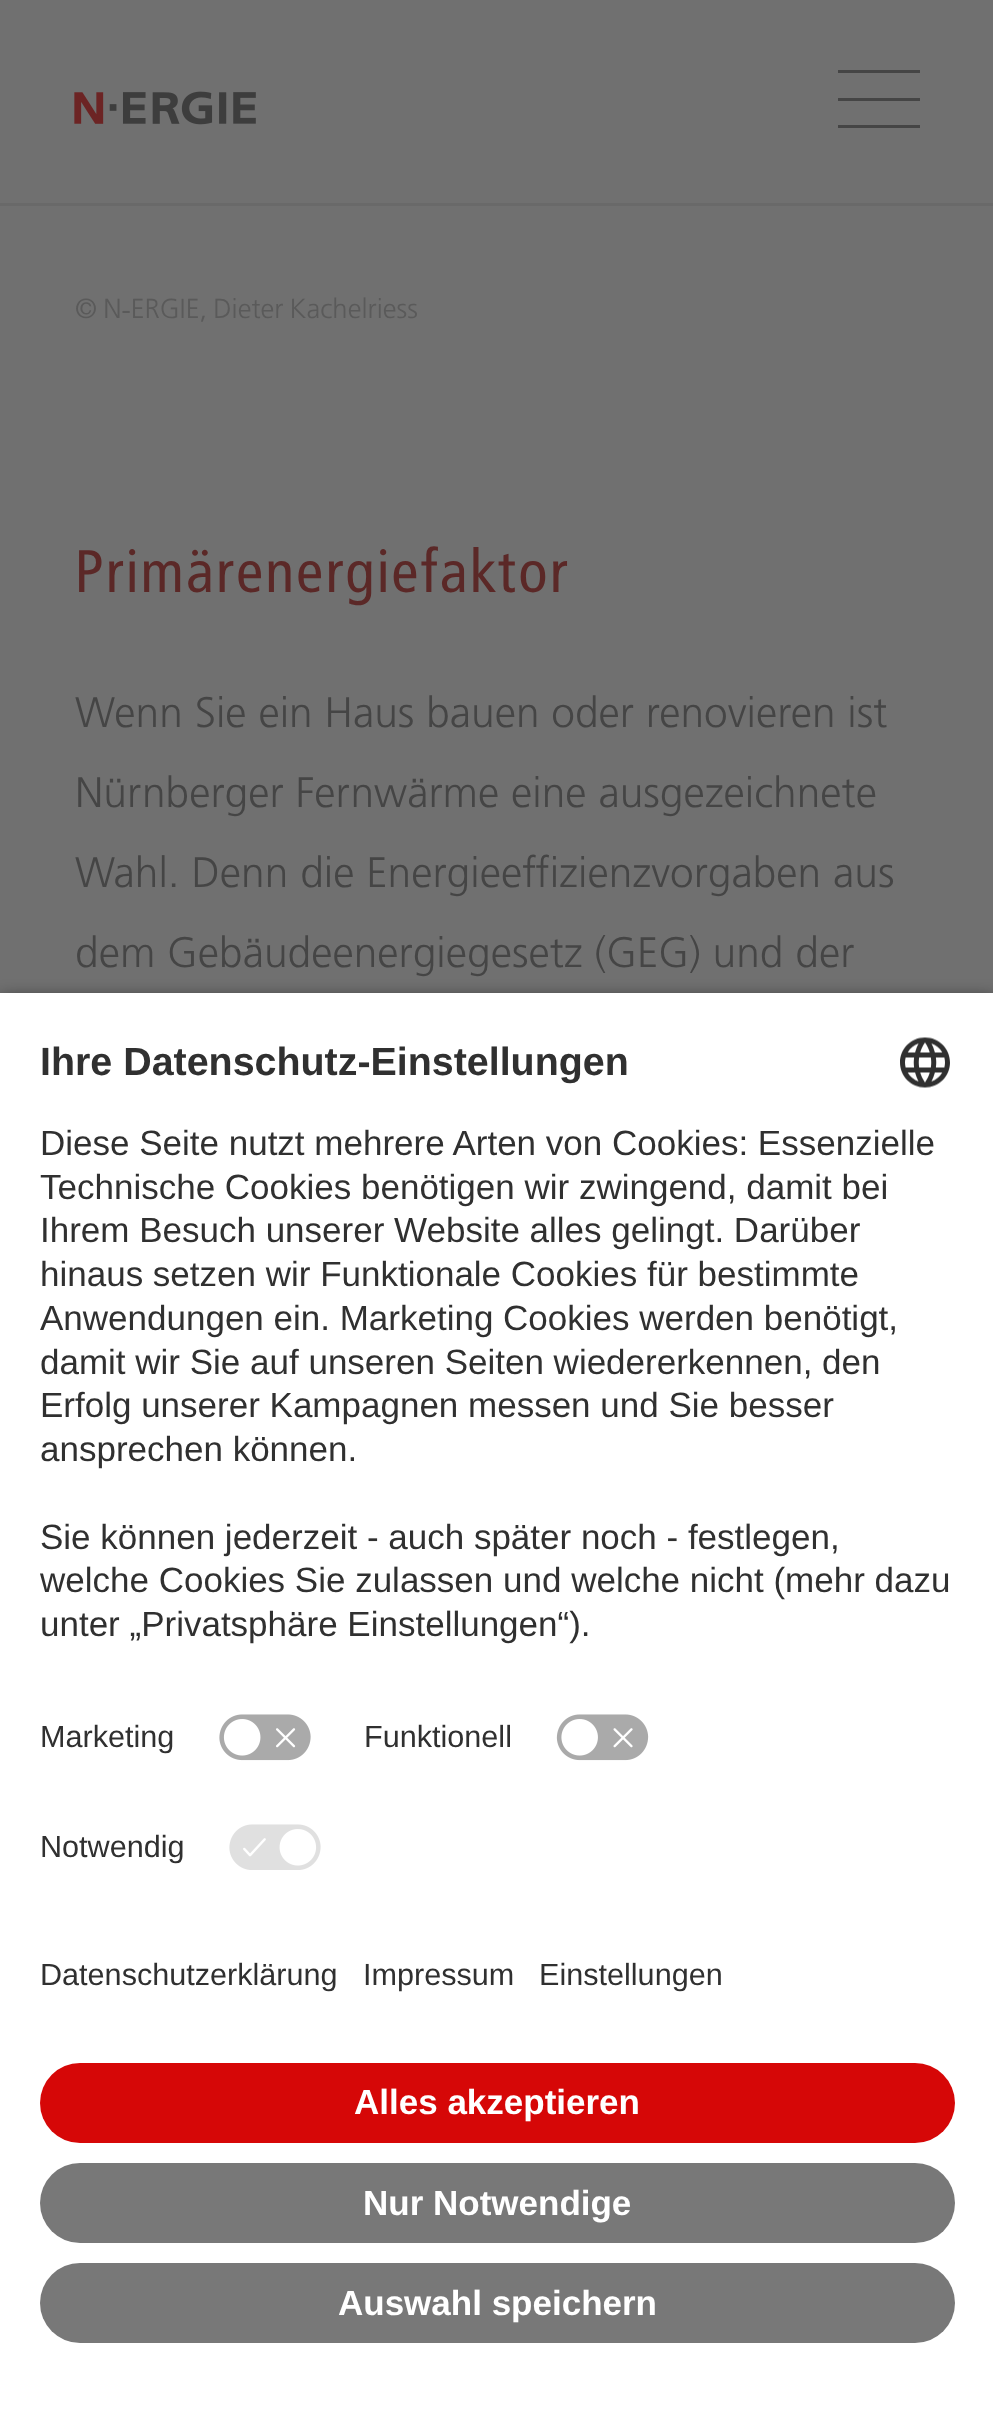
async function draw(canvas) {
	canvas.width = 993;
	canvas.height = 2411;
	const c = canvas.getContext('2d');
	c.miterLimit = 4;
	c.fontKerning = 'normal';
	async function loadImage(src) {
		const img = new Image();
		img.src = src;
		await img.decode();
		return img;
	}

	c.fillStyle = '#707070';
	c.fillRect(0, 0, 993, 2411);
	c.fillStyle = '#696969';
	c.fillRect(0, 203, 993, 3);
	c.drawImage(await loadImage('img1.png'), 74, 91, 182, 34);
	for (const [x, y, w, h, color] of [
		[838, 70, 82, 3, '#454545'],
		[838, 98, 82, 3, '#454545'],
		[838, 125, 82, 3, '#454545'],
	]) {
		c.fillStyle = color;
		c.fillRect(x, y, w, h);
	}
	c.wordSpacing = '-1.5px';
	c.font = '300 27.5px "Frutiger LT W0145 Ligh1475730"';
	c.fillStyle = '#5a5a5a';
	c.fillText('© N‑ERGIE, Dieter Kachelriess', 75, 318);
	c.wordSpacing = '0px';
	c.font = '60px "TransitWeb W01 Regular"';
	c.fillStyle = '#5b2827';
	c.fillText('Primärenergiefaktor', 75, 592);
	c.font = '300 42.5px "Frutiger LT W0145 Ligh1475730"';
	c.fillStyle = '#454545';
	for (const [text, x, y] of [
		['Wenn Sie ein Haus bauen oder renovieren ist', 75, 727],
		['Nürnberger Fernwärme eine ausgezeichnete', 75, 807],
		['Wahl. Denn die Energieeffizienzvorgaben aus', 75, 887],
		['dem Gebäudeenergiegesetz (GEG) und der', 75, 967],
	]) {
		c.fillText(text, x, y);
	}
	c.fillStyle = '#000000cc';
	c.filter = 'blur(9px)';
	c.beginPath();
	c.rect(0, 1000, 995, 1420);
	c.fill();
	c.filter = 'none';
	c.fillStyle = '#fff';
	c.fillRect(0, 993, 993, 1418);
	c.font = 'bold 39.4px Liberation Sans';
	c.fillStyle = '#303030';
	c.fillText('Ihre Datenschutz-Einstellungen', 40, 1075);
	c.drawImage(await loadImage('img2.png'), 900, 1037, 50, 51);
	c.font = '35px Liberation Sans';
	for (const [text, x, y] of [
		['Diese Seite nutzt mehrere Arten von Cookies: Essenzielle', 40, 1155],
		['Technische Cookies benötigen wir zwingend, damit bei', 40, 1199],
		['Ihrem Besuch unserer Website alles gelingt. Darüber', 40, 1242],
		['hinaus setzen wir Funktionale Cookies für bestimmte', 40, 1286],
		['Anwendungen ein. Marketing Cookies werden benötigt,', 40, 1330],
		['damit wir Sie auf unseren Seiten wiedererkennen, den', 40, 1374],
		['Erfolg unserer Kampagnen messen und Sie besser', 40, 1417],
		['ansprechen können.', 40, 1461],
		['Sie können jederzeit - auch später noch - festlegen,', 40, 1549],
		['welche Cookies Sie zulassen und welche nicht (mehr dazu', 40, 1592],
		['unter „Privatsphäre Einstellungen“).', 40, 1636],
	]) {
		c.fillText(text, x, y);
	}
	c.font = '30.6px Liberation Sans';
	c.fillText('Marketing', 40, 1747);
	c.drawImage(await loadImage('img3.png'), 219, 1714, 92, 47);
	c.fillText('Funktionell', 364, 1747);
	c.drawImage(await loadImage('img4.png'), 556, 1714, 93, 47);
	c.fillText('Notwendig', 40, 1857);
	c.drawImage(await loadImage('img5.png'), 229, 1824, 92, 46);
	for (const [text, x, y] of [
		['Datenschutzerklärung', 40, 1985],
		['Impressum', 363, 1985],
		['Einstellungen', 539, 1985],
	]) {
		c.fillText(text, x, y);
	}
	c.fillStyle = '#d60707';
	c.beginPath();
	c.roundRect(40, 2063, 915, 80, 40);
	c.fill();
	c.font = 'bold 35px Liberation Sans';
	c.fillStyle = '#fff';
	c.fillText('Alles akzeptieren', 354, 2114);
	c.fillStyle = '#787878';
	c.beginPath();
	c.roundRect(40, 2163, 915, 80, 40);
	c.fill();
	c.fillStyle = '#fff';
	c.fillText('Nur Notwendige', 363, 2215);
	c.fillStyle = '#787878';
	c.beginPath();
	c.roundRect(40, 2263, 915, 80, 40);
	c.fill();
	c.fillStyle = '#fff';
	c.fillText('Auswahl speichern', 338, 2315);
}

draw(document.querySelector('canvas'));
